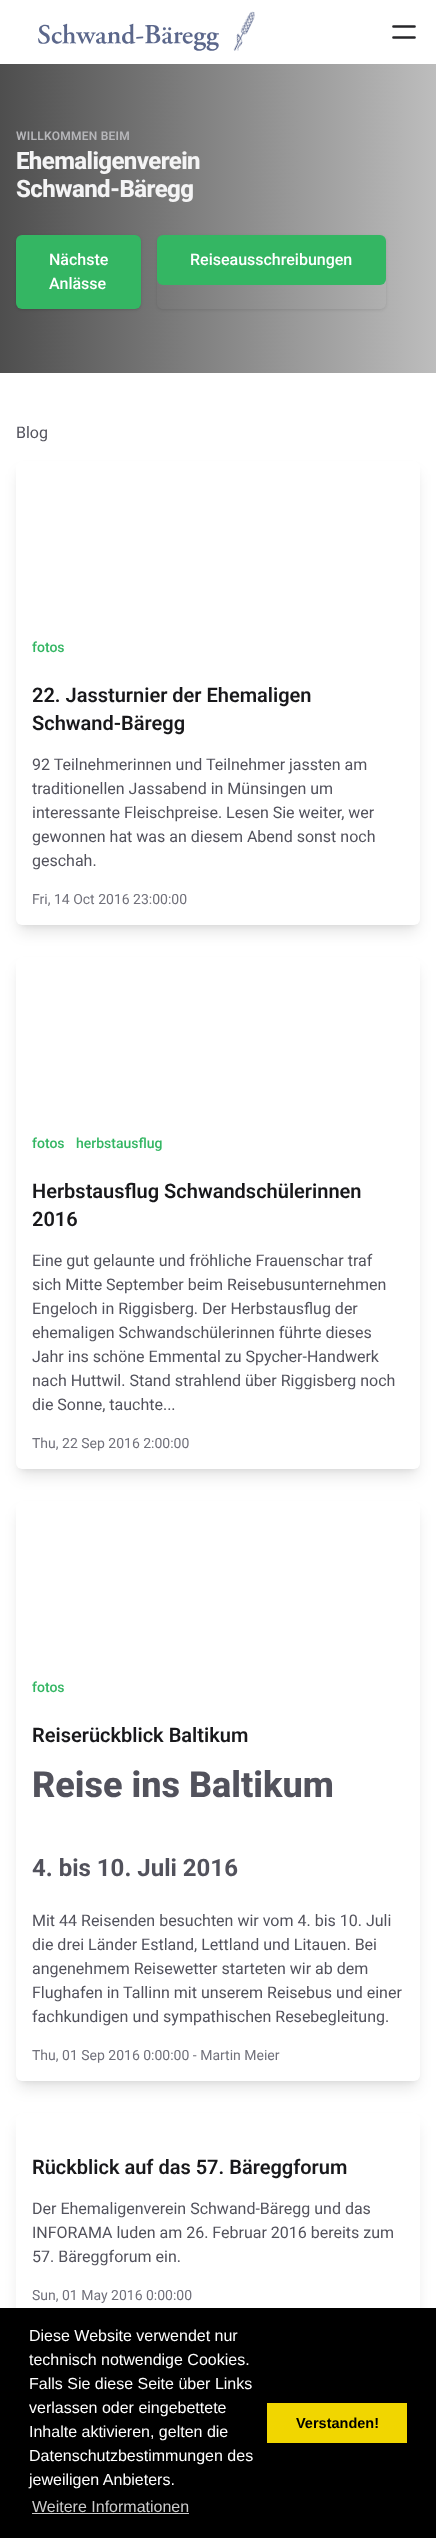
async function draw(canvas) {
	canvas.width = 436;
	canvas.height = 2538;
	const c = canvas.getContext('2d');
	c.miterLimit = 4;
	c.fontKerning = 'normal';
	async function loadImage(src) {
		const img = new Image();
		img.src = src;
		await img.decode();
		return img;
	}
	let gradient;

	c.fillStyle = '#fff';
	c.fillRect(0, 0, 436, 2538);
	c.drawImage(await loadImage('img1.png'), 38, 11, 217, 40);
	c.beginPath();
	c.moveTo(393.5, 26.5);
	c.lineTo(414.5, 26.5);
	c.moveTo(393.5, 37.5);
	c.lineTo(414.5, 37.5);
	c.strokeStyle = '#27272a';
	c.lineWidth = 2.7;
	c.lineCap = 'round';
	c.lineJoin = 'round';
	c.stroke();
	gradient = c.createLinearGradient(0, 187, 436, 187);
	gradient.addColorStop(0, '#4e4e4e');
	gradient.addColorStop(1, '#bdbdbd');
	c.fillStyle = gradient;
	c.fillRect(0, 64, 436, 309);
	c.letterSpacing = '0.25px';
	c.font = '600 12px Roboto';
	c.fillStyle = '#b7b7ba';
	c.fillText('WILLKOMMEN BEIM', 16, 140);
	c.letterSpacing = '-0.6px';
	c.font = '800 24px Roboto';
	c.fillStyle = '#f4f4f5';
	c.fillText('Ehemaligenverein', 16, 169);
	c.fillText('Schwand-Bäregg', 16, 197);
	c.fillStyle = '#0000001a';
	c.filter = 'blur(1px)';
	c.beginPath();
	c.roundRect(17, 237, 123, 72, 5);
	c.fill();
	c.filter = 'none';
	c.filter = 'blur(1.5px)';
	c.beginPath();
	c.roundRect(16, 236, 125, 74, 6);
	c.fill();
	c.filter = 'none';
	c.fillStyle = '#34b663';
	c.beginPath();
	c.roundRect(16, 235, 125, 74, 6);
	c.fill();
	c.letterSpacing = '0px';
	c.font = '500 16px Roboto';
	c.fillStyle = '#fff';
	c.fillText('Nächste', 49, 265);
	c.fillText('Anlässe', 49, 289);
	c.save();
	c.beginPath();
	c.moveTo(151, 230);
	c.lineTo(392, 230);
	c.lineTo(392, 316);
	c.lineTo(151, 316);
	c.closePath();
	c.moveTo(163, 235);
	c.lineTo(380, 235);
	c.bezierCurveTo(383.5, 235, 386, 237.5, 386, 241);
	c.lineTo(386, 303);
	c.bezierCurveTo(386, 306.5, 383.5, 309, 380, 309);
	c.lineTo(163, 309);
	c.bezierCurveTo(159.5, 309, 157, 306.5, 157, 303);
	c.lineTo(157, 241);
	c.bezierCurveTo(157, 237.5, 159.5, 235, 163, 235);
	c.closePath();
	c.clip('evenodd');
	c.fillStyle = '#0000001a';
	c.filter = 'blur(1.5px)';
	c.beginPath();
	c.roundRect(157, 236, 229, 74, 6);
	c.fill();
	c.filter = 'none';
	c.restore();
	c.fillStyle = '#34b663';
	c.beginPath();
	c.roundRect(157, 235, 229, 50, 6);
	c.fill();
	c.fillStyle = '#fff';
	c.fillText('Reiseausschreibungen', 190, 265);
	c.font = '16px Roboto';
	c.fillStyle = '#52525c';
	c.fillText('Blog', 16, 438);
	c.fillStyle = '#0000001a';
	c.filter = 'blur(3px)';
	c.beginPath();
	c.roundRect(20, 469, 396, 456, 2);
	c.fill();
	c.filter = 'none';
	c.filter = 'blur(7.5px)';
	c.beginPath();
	c.roundRect(19, 474, 398, 458, 3);
	c.fill();
	c.filter = 'none';
	c.fillStyle = '#fff';
	c.beginPath();
	c.roundRect(16, 461, 404, 464, 6);
	c.fill();
	c.font = '500 14px Roboto';
	c.fillStyle = '#34b663';
	c.fillText('fotos', 32, 652);
	c.font = '600 20px Roboto';
	c.fillStyle = '#18181b';
	c.fillText('22. Jassturnier der Ehemaligen', 32, 702);
	c.fillText('Schwand-Bäregg', 32, 730);
	c.font = '16px Roboto';
	c.fillStyle = '#52525c';
	for (const [text, x, y] of [
		['92 Teilnehmerinnen und Teilnehmer jassten am', 32, 770],
		['traditionellen Jassabend in Münsingen um', 32, 794],
		['interessante Fleischpreise. Lesen Sie weiter, wer', 32, 818],
		['gewonnen hat was an diesem Abend sonst noch', 32, 842],
		['geschah.', 32, 866],
	]) {
		c.fillText(text, x, y);
	}
	c.font = '14px Roboto';
	c.fillStyle = '#71717b';
	c.fillText('Fri, 14 Oct 2016 23:00:00', 32, 904);
	c.fillStyle = '#0000001a';
	c.filter = 'blur(3px)';
	c.beginPath();
	c.roundRect(20, 965, 396, 504, 2);
	c.fill();
	c.filter = 'none';
	c.filter = 'blur(7.5px)';
	c.beginPath();
	c.roundRect(19, 970, 398, 506, 3);
	c.fill();
	c.filter = 'none';
	c.fillStyle = '#fff';
	c.beginPath();
	c.roundRect(16, 957, 404, 512, 6);
	c.fill();
	c.font = '500 14px Roboto';
	c.fillStyle = '#34b663';
	c.fillText('fotos', 32, 1148);
	c.fillText('herbstausflug', 76, 1148);
	c.font = '600 20px Roboto';
	c.fillStyle = '#18181b';
	c.fillText('Herbstausflug Schwandschülerinnen', 32, 1198);
	c.fillText('2016', 32, 1226);
	c.font = '16px Roboto';
	c.fillStyle = '#52525c';
	for (const [text, x, y] of [
		['Eine gut gelaunte und fröhliche Frauenschar traf', 32, 1266],
		['sich Mitte September beim Reisebusunternehmen', 32, 1290],
		['Engeloch in Riggisberg. Der Herbstausflug der', 32, 1314],
		['ehemaligen Schwandschülerinnen führte dieses', 32, 1338],
		['Jahr ins schöne Emmental zu Spycher-Handwerk', 32, 1362],
		['nach Huttwil. Stand strahlend über Riggisberg noch', 32, 1386],
		['die Sonne, tauchte...', 32, 1410],
	]) {
		c.fillText(text, x, y);
	}
	c.font = '14px Roboto';
	c.fillStyle = '#71717b';
	c.fillText('Thu, 22 Sep 2016 2:00:00', 32, 1448);
	c.fillStyle = '#0000001a';
	c.filter = 'blur(3px)';
	c.beginPath();
	c.roundRect(20, 1509, 396, 572, 2);
	c.fill();
	c.filter = 'none';
	c.filter = 'blur(7.5px)';
	c.beginPath();
	c.roundRect(19, 1514, 398, 574, 3);
	c.fill();
	c.filter = 'none';
	c.fillStyle = '#fff';
	c.beginPath();
	c.roundRect(16, 1501, 404, 580, 6);
	c.fill();
	c.font = '500 14px Roboto';
	c.fillStyle = '#34b663';
	c.fillText('fotos', 32, 1692);
	c.font = '600 20px Roboto';
	c.fillStyle = '#18181b';
	c.fillText('Reiserückblick Baltikum', 32, 1742);
	c.font = '800 36px Roboto';
	c.fillStyle = '#52525c';
	c.fillText('Reise ins Baltikum', 32, 1797);
	c.font = 'bold 24px Roboto';
	c.fillText('4. bis 10. Juli 2016', 32, 1876);
	c.font = '16px Roboto';
	for (const [text, x, y] of [
		['Mit 44 Reisenden besuchten wir vom 4. bis 10. Juli', 32, 1926],
		['die drei Länder Estland, Lettland und Litauen. Bei', 32, 1950],
		['angenehmem Reisewetter starteten wir ab dem', 32, 1974],
		['Flughafen in Tallinn mit unserem Reisebus und einer', 32, 1998],
		['fachkundigen und sympathischen Resebegleitung.', 32, 2022],
	]) {
		c.fillText(text, x, y);
	}
	c.font = '14px Roboto';
	c.fillStyle = '#71717b';
	c.fillText('Thu, 01 Sep 2016 0:00:00 - Martin Meier', 32, 2060);
	c.fillStyle = '#0000001a';
	c.filter = 'blur(7.5px)';
	c.beginPath();
	c.roundRect(19, 2126, 398, 202, 3);
	c.fill();
	c.filter = 'none';
	c.fillStyle = '#fff';
	c.beginPath();
	c.roundRect(16, 2113, 404, 208, 6);
	c.fill();
	c.font = '600 20px Roboto';
	c.fillStyle = '#18181b';
	c.fillText('Rückblick auf das 57. Bäreggforum', 32, 2174);
	c.font = '16px Roboto';
	c.fillStyle = '#52525c';
	for (const [text, x, y] of [
		['Der Ehemaligenverein Schwand-Bäregg und das', 32, 2214],
		['INFORAMA luden am 26. Februar 2016 bereits zum', 32, 2238],
		['57. Bäreggforum ein.', 32, 2262],
	]) {
		c.fillText(text, x, y);
	}
	c.font = '14px Roboto';
	c.fillStyle = '#71717b';
	c.fillText('Sun, 01 May 2016 0:00:00', 32, 2300);
	c.fillStyle = '#000';
	c.fillRect(0, 2308, 436, 230);
	c.font = '16px Liberation Sans';
	c.fillStyle = '#fff';
	for (const [text, x, y] of [
		['Diese Website verwendet nur', 29, 2341],
		['technisch notwendige Cookies.', 29, 2365],
		['Falls Sie diese Seite über Links', 29, 2389],
		['verlassen oder eingebettete', 29, 2413],
		['Inhalte aktivieren, gelten die', 29, 2437],
		['Datenschutzbestimmungen des', 29, 2461],
		['jeweiligen Anbieters.', 29, 2485],
	]) {
		c.fillText(text, x, y);
	}
	c.fillStyle = '#ccc';
	c.fillText('Weitere Informationen', 32, 2512);
	c.fillRect(32, 2513, 157, 1);
	c.fillStyle = '#f1d600';
	c.fillRect(267, 2403, 140, 40);
	c.font = 'bold 14.5px Liberation Sans';
	c.fillStyle = '#000';
	c.fillText('Verstanden!', 296, 2428);
}

draw(document.querySelector('canvas'));
